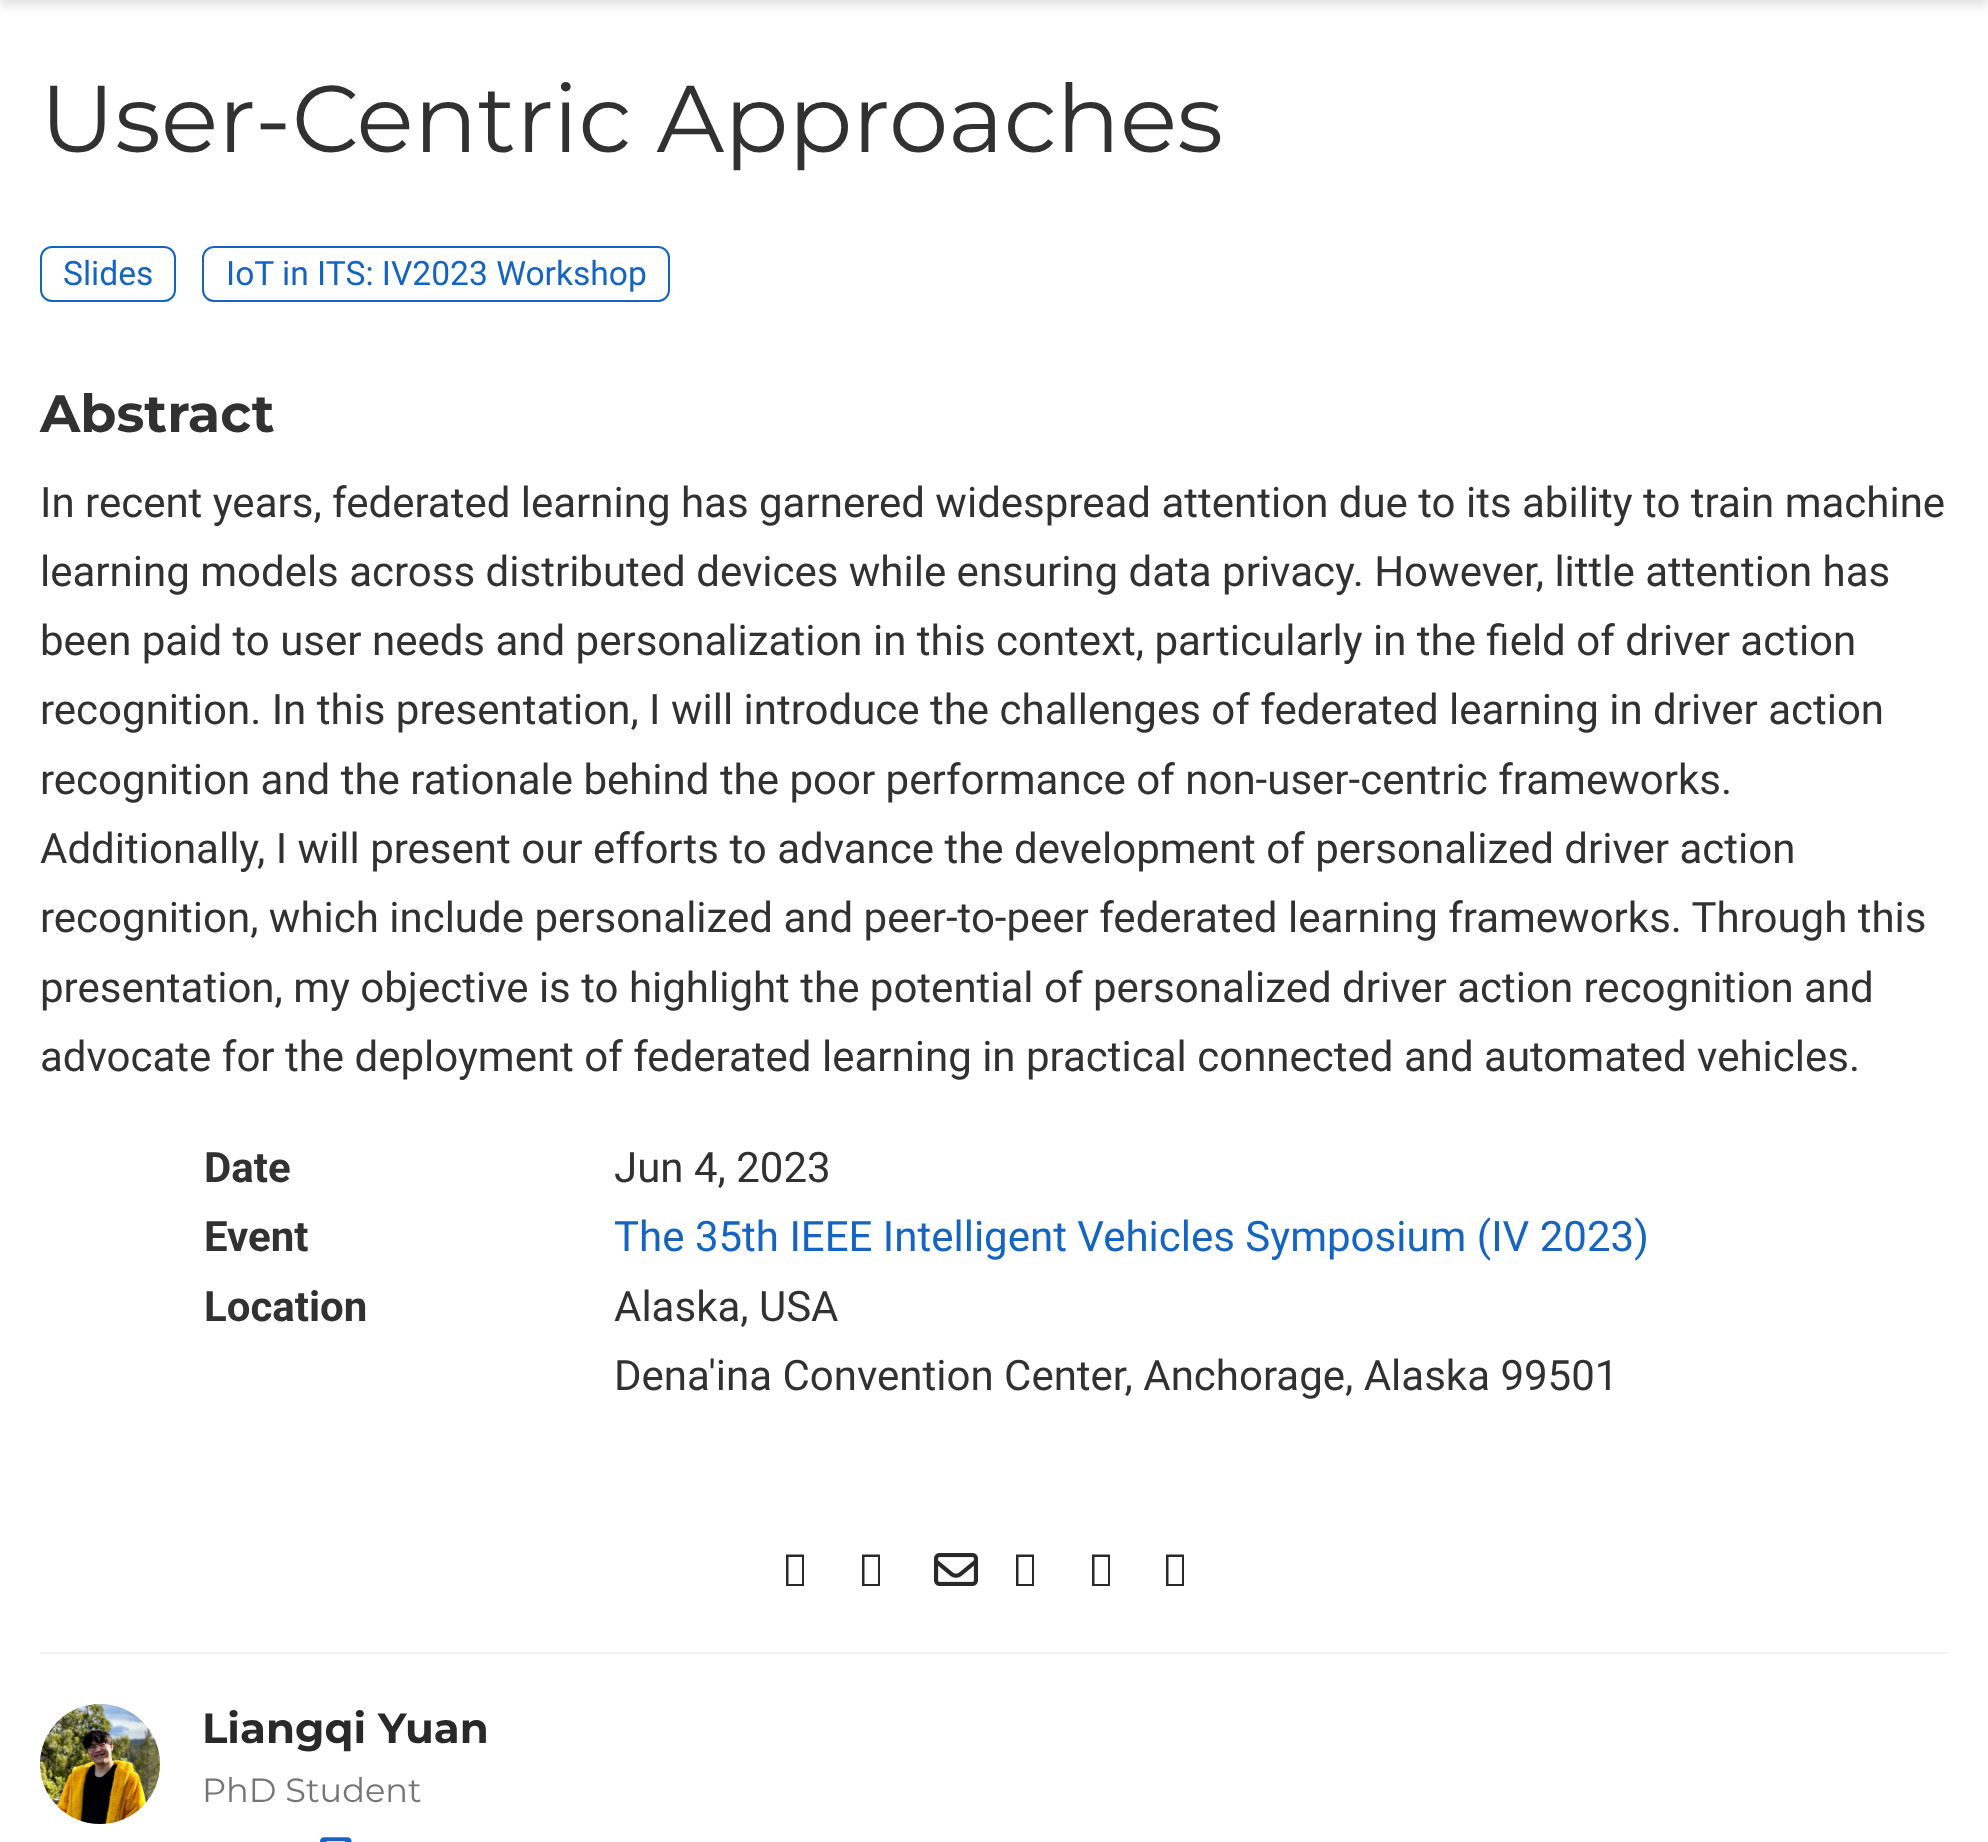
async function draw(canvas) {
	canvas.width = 1988;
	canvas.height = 1842;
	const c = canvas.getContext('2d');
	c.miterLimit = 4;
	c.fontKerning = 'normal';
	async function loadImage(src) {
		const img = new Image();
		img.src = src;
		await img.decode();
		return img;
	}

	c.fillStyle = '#fff';
	c.fillRect(0, 0, 1988, 1842);
	c.fillStyle = '#0000001c';
	c.filter = 'blur(5px)';
	c.beginPath();
	c.rect(0, -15, 1988, 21);
	c.fill();
	c.filter = 'none';
	c.font = '94.5px Montserrat';
	c.fillStyle = '#313131';
	c.fillText('User-Centric Approaches', 40, 152);
	c.beginPath();
	c.roundRect(41, 247, 134, 54, 11);
	c.strokeStyle = '#1565c0';
	c.lineWidth = 2;
	c.stroke();
	c.font = '33.6px Roboto';
	c.fillStyle = '#1565c0';
	c.fillText('Slides', 63, 285);
	c.beginPath();
	c.roundRect(203, 247, 466, 54, 11);
	c.stroke();
	c.fillText('IoT in ITS: IV2023 Workshop', 226, 285);
	c.font = 'bold 52.5px Montserrat';
	c.fillStyle = '#313131';
	c.fillText('Abstract', 40, 432);
	c.font = '42px Roboto';
	for (const [text, x, y] of [
		['In recent years, federated learning has garnered widespread attention due to its ability to train machine', 40, 517],
		['learning models across distributed devices while ensuring data privacy. However, little attention has', 40, 586],
		['been paid to user needs and personalization in this context, particularly in the field of driver action', 40, 655],
		['recognition. In this presentation, I will introduce the challenges of federated learning in driver action', 40, 724],
		['recognition and the rationale behind the poor performance of non-user-centric frameworks.', 40, 794],
		['Additionally, I will present our efforts to advance the development of personalized driver action', 40, 863],
		['recognition, which include personalized and peer-to-peer federated learning frameworks. Through this', 40, 932],
		['presentation, my objective is to highlight the potential of personalized driver action recognition and', 40, 1002],
		['advocate for the deployment of federated learning in practical connected and automated vehicles.', 40, 1071],
	]) {
		c.fillText(text, x, y);
	}
	c.font = 'bold 42px Roboto';
	c.fillText('Date', 204, 1182);
	c.font = '42px Roboto';
	c.fillText('Jun 4, 2023', 614, 1182);
	c.font = 'bold 42px Roboto';
	c.fillText('Event', 204, 1251);
	c.font = '42px Roboto';
	c.fillStyle = '#1565c0';
	c.fillText('The 35th IEEE Intelligent Vehicles Symposium (IV 2023)', 614, 1251);
	c.font = 'bold 42px Roboto';
	c.fillStyle = '#313131';
	c.fillText('Location', 204, 1321);
	c.font = '42px Roboto';
	c.fillText('Alaska, USA', 614, 1321);
	c.fillText('Dena\'ina Convention Center, Anchorage, Alaska 99501', 614, 1390);
	c.fillStyle = '#292929';
	c.beginPath();
	c.moveTo(786, 1586);
	c.lineTo(786, 1554.5);
	c.lineTo(804, 1554.5);
	c.lineTo(804, 1586);
	c.closePath();
	c.moveTo(788.5, 1584);
	c.lineTo(802, 1584);
	c.lineTo(802, 1557);
	c.lineTo(788.5, 1557);
	c.closePath();
	c.fill();
	c.beginPath();
	c.moveTo(862, 1586);
	c.lineTo(862, 1554.5);
	c.lineTo(880, 1554.5);
	c.lineTo(880, 1586);
	c.closePath();
	c.moveTo(864.5, 1584);
	c.lineTo(878, 1584);
	c.lineTo(878, 1557);
	c.lineTo(864.5, 1557);
	c.closePath();
	c.fill();
	c.drawImage(await loadImage('img1.png'), 934, 1553, 44, 33);
	c.beginPath();
	c.moveTo(1016, 1586);
	c.lineTo(1016, 1554.5);
	c.lineTo(1034, 1554.5);
	c.lineTo(1034, 1586);
	c.closePath();
	c.moveTo(1018.5, 1584);
	c.lineTo(1032, 1584);
	c.lineTo(1032, 1557);
	c.lineTo(1018.5, 1557);
	c.closePath();
	c.fill();
	c.beginPath();
	c.moveTo(1092, 1586);
	c.lineTo(1092, 1554.5);
	c.lineTo(1110, 1554.5);
	c.lineTo(1110, 1586);
	c.closePath();
	c.moveTo(1094.5, 1584);
	c.lineTo(1108, 1584);
	c.lineTo(1108, 1557);
	c.lineTo(1094.5, 1557);
	c.closePath();
	c.fill();
	c.beginPath();
	c.moveTo(1166, 1586);
	c.lineTo(1166, 1554.5);
	c.lineTo(1184, 1554.5);
	c.lineTo(1184, 1586);
	c.closePath();
	c.moveTo(1168.5, 1584);
	c.lineTo(1182, 1584);
	c.lineTo(1182, 1557);
	c.lineTo(1168.5, 1557);
	c.closePath();
	c.fill();
	c.fillStyle = '#f2f2f2';
	c.fillRect(40, 1652, 1908, 2);
	c.drawImage(await loadImage('img2.png'), 40, 1704, 120, 120);
	c.font = 'bold 42px Montserrat';
	c.fillStyle = '#292929';
	c.fillText('Liangqi Yuan', 202, 1743);
	c.font = '33.6px Montserrat';
	c.fillStyle = '#757575';
	c.fillText('PhD Student', 202, 1802);
	c.drawImage(await loadImage('img3.png'), 320, 1837, 32, 5);
}

draw(document.querySelector('canvas'));
